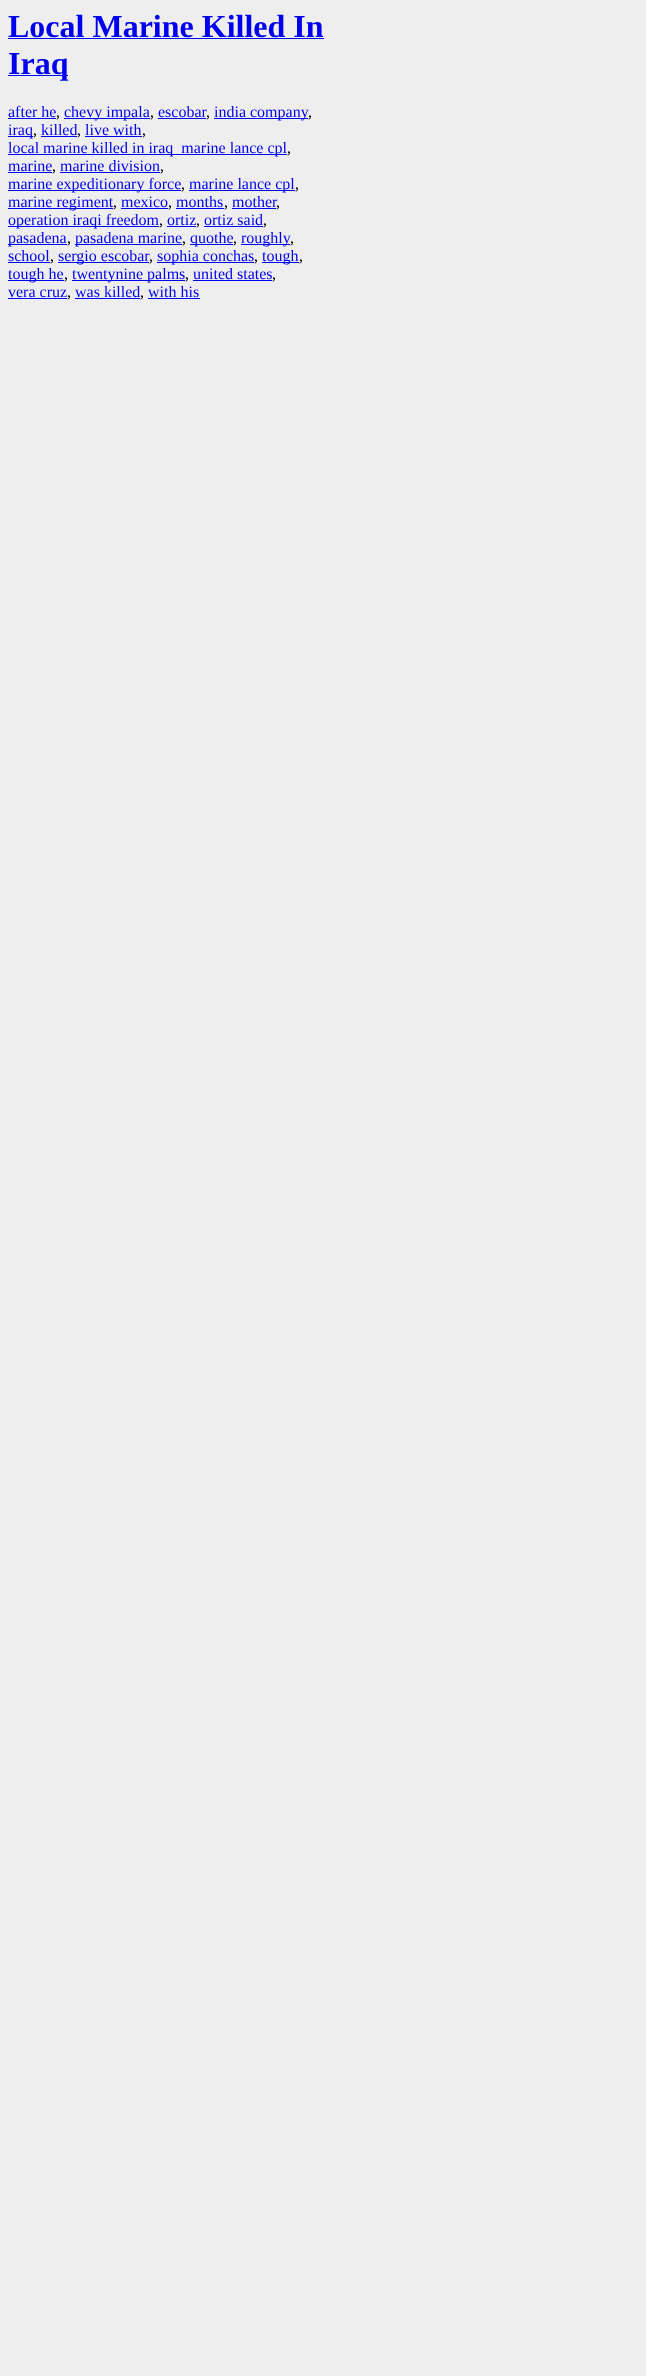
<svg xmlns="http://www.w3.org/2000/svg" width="646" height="2376">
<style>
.a{font:bold 32px Liberation Serif;fill:#00e}
.b{font:16px Liberation Serif;fill:#00e}
.c{font:16px Liberation Serif;fill:#000}
</style>
<rect width="100%" height="100%" fill="#eee"/>
<path fill="#00e" d="M8 38h316v1H8z"/>
<path fill="#00e" d="M8 75h60v1H8z"/>
<path fill="#00e" d="M8 118h48v1H8z"/>
<path fill="#00e" d="M64 118h86v1H64z"/>
<path fill="#00e" d="M158 118h48v1H158z"/>
<path fill="#00e" d="M214 118h94v1H214z"/>
<path fill="#00e" d="M8 136h25v1H8z"/>
<path fill="#00e" d="M41 136h36v1H41z"/>
<path fill="#00e" d="M85 136h57v1H85z"/>
<path fill="#00e" d="M8 154h279v1H8z"/>
<path fill="#00e" d="M8 172h44v1H8z"/>
<path fill="#00e" d="M60 172h100v1H60z"/>
<path fill="#00e" d="M8 190h173v1H8z"/>
<path fill="#00e" d="M189 190h106v1H189z"/>
<path fill="#00e" d="M8 208h105v1H8z"/>
<path fill="#00e" d="M121 208h47v1H121z"/>
<path fill="#00e" d="M176 208h48v1H176z"/>
<path fill="#00e" d="M232 208h44v1H232z"/>
<path fill="#00e" d="M8 226h151v1H8z"/>
<path fill="#00e" d="M167 226h29v1H167z"/>
<path fill="#00e" d="M204 226h59v1H204z"/>
<path fill="#00e" d="M8 244h59v1H8z"/>
<path fill="#00e" d="M75 244h107v1H75z"/>
<path fill="#00e" d="M190 244h43v1H190z"/>
<path fill="#00e" d="M241 244h49v1H241z"/>
<path fill="#00e" d="M8 262h42v1H8z"/>
<path fill="#00e" d="M58 262h91v1H58z"/>
<path fill="#00e" d="M157 262h97v1H157z"/>
<path fill="#00e" d="M262 262h37v1H262z"/>
<path fill="#00e" d="M8 280h56v1H8z"/>
<path fill="#00e" d="M72 280h113v1H72z"/>
<path fill="#00e" d="M193 280h79v1H193z"/>
<path fill="#00e" d="M8 298h59v1H8z"/>
<path fill="#00e" d="M75 298h65v1H75z"/>
<path fill="#00e" d="M148 298h52v1H148z"/>
<text class="a" x="8" y="37">Local Marine Killed In</text>
<text class="a" x="8" y="74">Iraq</text>
<text class="b" x="8" y="117">after he</text>
<text class="c" x="56" y="117">,</text>
<text class="b" x="64" y="117">chevy impala</text>
<text class="c" x="150" y="117">,</text>
<text class="b" x="158" y="117">escobar</text>
<text class="c" x="206" y="117">,</text>
<text class="b" x="214" y="117">india company</text>
<text class="c" x="308" y="117">,</text>
<text class="b" x="8" y="135">iraq</text>
<text class="c" x="33" y="135">,</text>
<text class="b" x="41" y="135">killed</text>
<text class="c" x="77" y="135">,</text>
<text class="b" x="85" y="135">live with</text>
<text class="c" x="142" y="135">,</text>
<text class="b" xml:space="preserve" x="8" y="153">local marine killed in iraq  marine lance cpl</text>
<text class="c" x="287" y="153">,</text>
<text class="b" x="8" y="171">marine</text>
<text class="c" x="52" y="171">,</text>
<text class="b" x="60" y="171">marine division</text>
<text class="c" x="160" y="171">,</text>
<text class="b" x="8" y="189">marine expeditionary force</text>
<text class="c" x="181" y="189">,</text>
<text class="b" x="189" y="189">marine lance cpl</text>
<text class="c" x="295" y="189">,</text>
<text class="b" x="8" y="207">marine regiment</text>
<text class="c" x="113" y="207">,</text>
<text class="b" x="121" y="207">mexico</text>
<text class="c" x="168" y="207">,</text>
<text class="b" x="176" y="207">months</text>
<text class="c" x="224" y="207">,</text>
<text class="b" x="232" y="207">mother</text>
<text class="c" x="276" y="207">,</text>
<text class="b" x="8" y="225">operation iraqi freedom</text>
<text class="c" x="159" y="225">,</text>
<text class="b" x="167" y="225">ortiz</text>
<text class="c" x="196" y="225">,</text>
<text class="b" x="204" y="225">ortiz said</text>
<text class="c" x="263" y="225">,</text>
<text class="b" x="8" y="243">pasadena</text>
<text class="c" x="67" y="243">,</text>
<text class="b" x="75" y="243">pasadena marine</text>
<text class="c" x="182" y="243">,</text>
<text class="b" x="190" y="243">quothe</text>
<text class="c" x="233" y="243">,</text>
<text class="b" x="241" y="243">roughly</text>
<text class="c" x="290" y="243">,</text>
<text class="b" x="8" y="261">school</text>
<text class="c" x="50" y="261">,</text>
<text class="b" x="58" y="261">sergio escobar</text>
<text class="c" x="149" y="261">,</text>
<text class="b" x="157" y="261">sophia conchas</text>
<text class="c" x="254" y="261">,</text>
<text class="b" x="262" y="261">tough</text>
<text class="c" x="299" y="261">,</text>
<text class="b" x="8" y="279">tough he</text>
<text class="c" x="64" y="279">,</text>
<text class="b" x="72" y="279">twentynine palms</text>
<text class="c" x="185" y="279">,</text>
<text class="b" x="193" y="279">united states</text>
<text class="c" x="272" y="279">,</text>
<text class="b" x="8" y="297">vera cruz</text>
<text class="c" x="67" y="297">,</text>
<text class="b" x="75" y="297">was killed</text>
<text class="c" x="140" y="297">,</text>
<text class="b" x="148" y="297">with his</text>
</svg>
